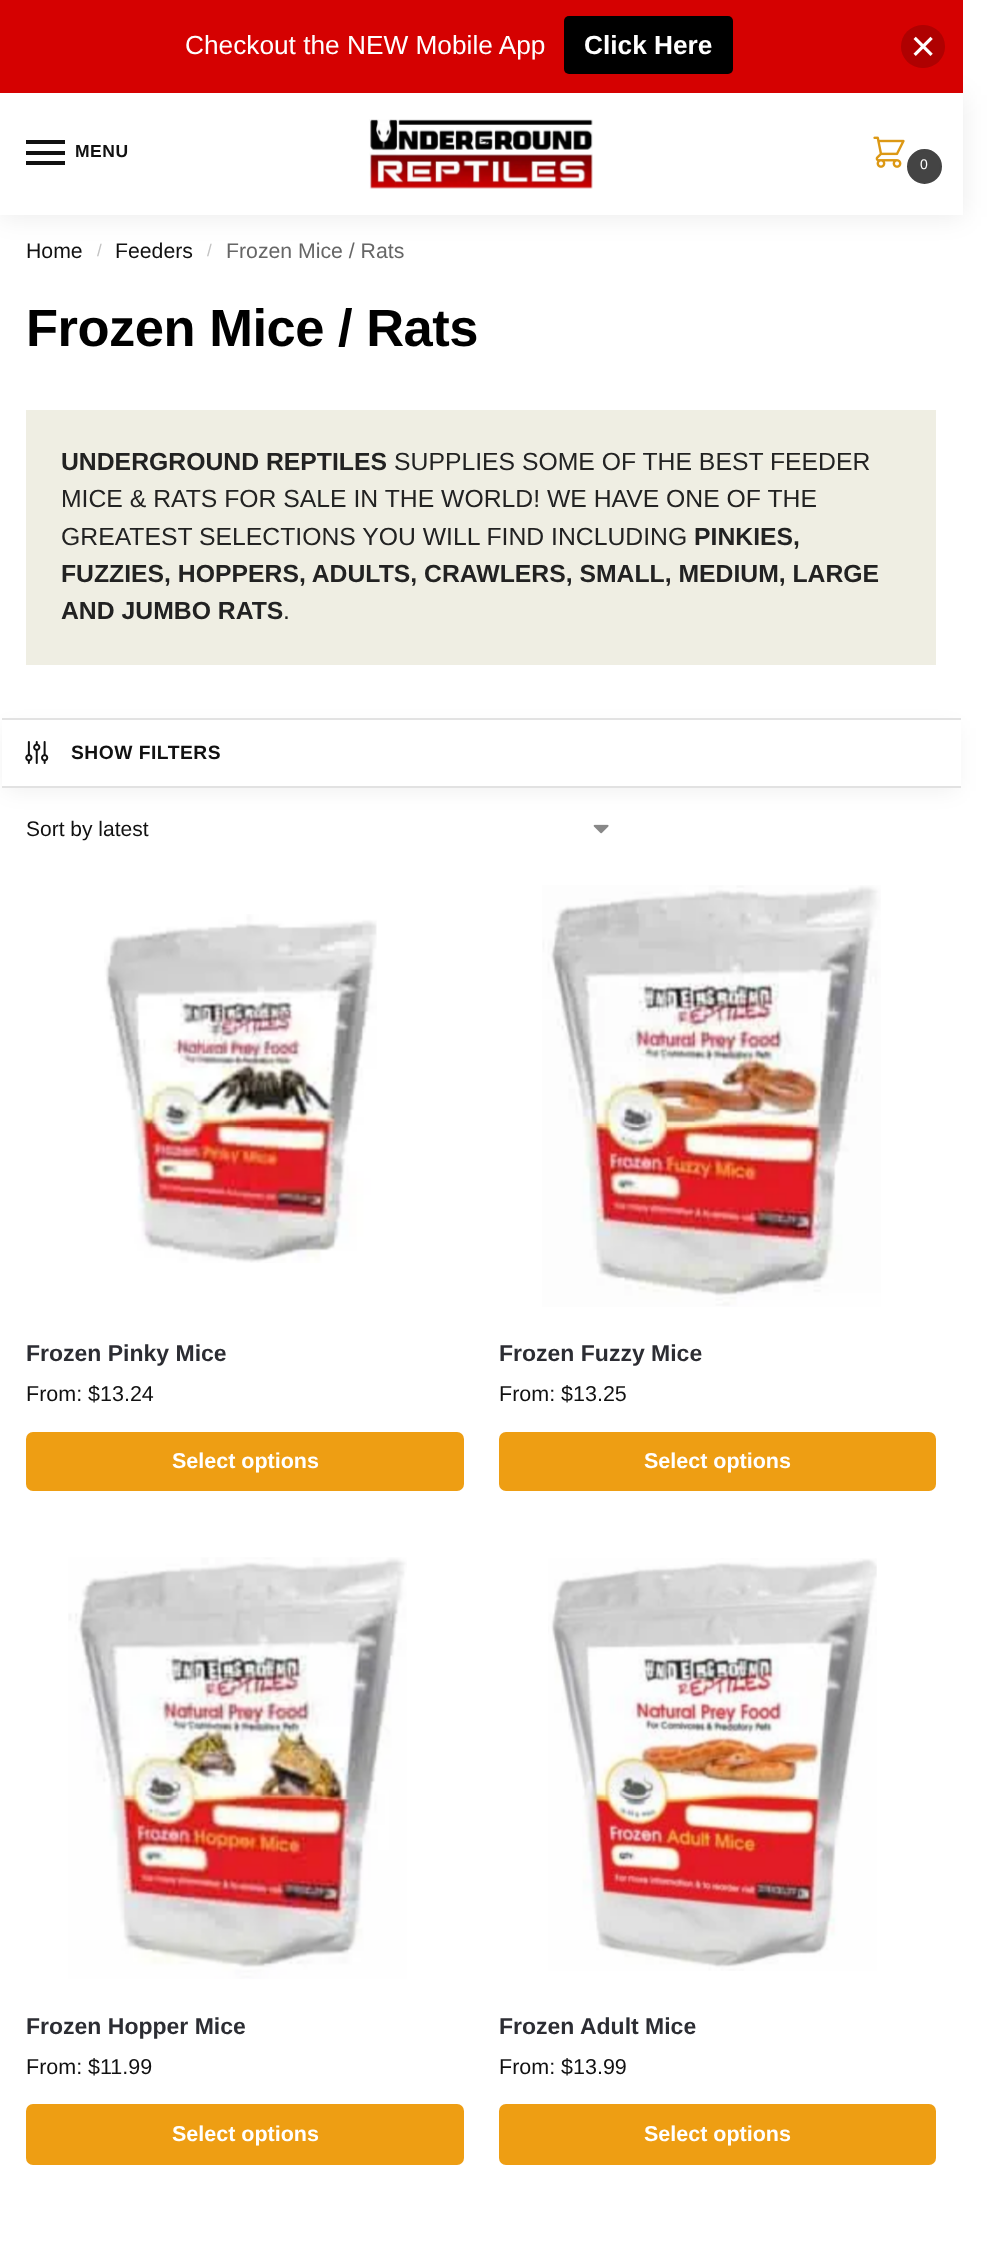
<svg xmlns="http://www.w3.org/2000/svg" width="988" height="2256">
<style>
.a{font:26.25px Liberation Sans;fill:#fff}
.b{font:bold 26.25px Liberation Sans;fill:#fff}
.c{font:bold 17.5px Liberation Sans;letter-spacing:0.5px;fill:#111}
.d{font:14px Liberation Sans;fill:#fff}
.e{font:21.25px Liberation Sans;fill:#111}
.f{font:17px Liberation Sans;fill:#c2c2c2}
.g{font:21.25px Liberation Sans;fill:#666}
.h{font:bold 52.5px Liberation Sans;letter-spacing:-0.5px;fill:#000}
.i{font:bold 24.75px Liberation Sans;fill:#222}
.j{font:24.75px Liberation Sans;fill:#222}
.k{font:bold 19.25px Liberation Sans;letter-spacing:0.5px;fill:#111}
.l{font:21px Liberation Sans;fill:#111}
.m{font:bold 23px Liberation Sans;fill:#2c2d33}
.n{font:21.5px Liberation Sans;fill:#111}
.o{font:bold 21.5px Liberation Sans;fill:#fff}
</style>
<rect width="100%" height="100%" fill="#fff"/>
<path fill="#00000014" filter="blur(13px)" d="M0 95h963v122H0z"/>
<path fill="#d50101" d="M0 0h963v93H0z"/>
<rect fill="#000" x="564" y="16" width="169" height="58" rx="5"/>
<rect fill="#af0101" x="901" y="25" width="44" height="43" rx="21.5"/>
<image href="1.png" x="913" y="36" width="20" height="20"/>
<path fill="#fff" d="M0 93h963v122H0z"/>
<path fill="#111" d="M26 140h39v4H26z"/>
<path fill="#111" d="M26 151h39v4H26z"/>
<path fill="#111" d="M26 161h39v4H26z"/>
<image href="2.png" x="369" y="119" width="224" height="70"/>
<image href="3.png" x="873" y="136" width="32" height="32"/>
<circle fill="#444" stroke="#444" stroke-width="2" cx="924.5" cy="166.5" r="16.5"/>
<path fill="#efeee3" d="M26 410h910v255H26z"/>
<path fill="#0000000f" filter="blur(10.5px)" d="M5 728h952v63H5z"/>
<path fill="#fff" d="M2 720h959v66H2z"/>
<path fill="#e2e2e2" d="M2 718h959v2H2z"/>
<path fill="#e2e2e2" d="M2 786h959v2H2z"/>
<image href="4.png" x="25" y="741" width="24" height="23"/>
<image href="5.png" x="593" y="824" width="16" height="10"/>
<image href="6.png" x="104" y="914" width="273" height="349"/>
<rect fill="#ee9e13" x="26" y="1432" width="438" height="59" rx="7"/>
<image href="7.png" x="542" y="885" width="339" height="422"/>
<rect fill="#ee9e13" x="499" y="1432" width="437" height="59" rx="7"/>
<image href="8.png" x="68" y="1557" width="339" height="422"/>
<rect fill="#ee9e13" x="26" y="2104" width="438" height="61" rx="7"/>
<image href="9.png" x="548" y="1558" width="329" height="413"/>
<rect fill="#ee9e13" x="499" y="2104" width="437" height="61" rx="7"/>
<text class="a" x="185" y="54">Checkout the NEW Mobile App</text>
<text class="b" x="584" y="54">Click Here</text>
<text class="c" x="75" y="157">MENU</text>
<text class="d" x="920" y="169">0</text>
<text class="e" x="26" y="258">Home</text>
<text class="f" x="97" y="256">/</text>
<text class="e" x="115" y="258">Feeders</text>
<text class="f" x="207" y="256">/</text>
<text class="g" x="226" y="258">Frozen Mice / Rats</text>
<text class="h" x="26" y="346">Frozen Mice / Rats</text>
<text class="i" x="61" y="470">UNDERGROUND REPTILES</text>
<text class="j" x="394" y="470">SUPPLIES SOME OF THE BEST FEEDER</text>
<text class="j" x="61" y="507">MICE &amp; RATS FOR SALE IN THE WORLD! WE HAVE ONE OF THE</text>
<text class="j" x="61" y="545">GREATEST SELECTIONS YOU WILL FIND INCLUDING</text>
<text class="i" x="694" y="545">PINKIES,</text>
<text class="i" x="61" y="582">FUZZIES, HOPPERS, ADULTS, CRAWLERS, SMALL, MEDIUM, LARGE</text>
<text class="i" x="61" y="619">AND JUMBO RATS</text>
<text class="j" x="283" y="619">.</text>
<text class="k" x="71" y="759">SHOW FILTERS</text>
<text class="l" x="26" y="836">Sort by latest</text>
<text class="m" x="26" y="1361">Frozen Pinky Mice</text>
<text class="n" x="26" y="1401">From: $</text>
<text class="n" x="100" y="1401">13.24</text>
<text class="o" x="172" y="1468">Select options</text>
<text class="m" x="499" y="1361">Frozen Fuzzy Mice</text>
<text class="n" x="499" y="1401">From: $</text>
<text class="n" x="573" y="1401">13.25</text>
<text class="o" x="644" y="1468">Select options</text>
<text class="m" x="26" y="2034">Frozen Hopper Mice</text>
<text class="n" x="26" y="2074">From: $</text>
<text class="n" x="100" y="2074">11.99</text>
<text class="o" x="172" y="2141">Select options</text>
<text class="m" x="499" y="2034">Frozen Adult Mice</text>
<text class="n" x="499" y="2074">From: $</text>
<text class="n" x="573" y="2074">13.99</text>
<text class="o" x="644" y="2141">Select options</text>
</svg>
